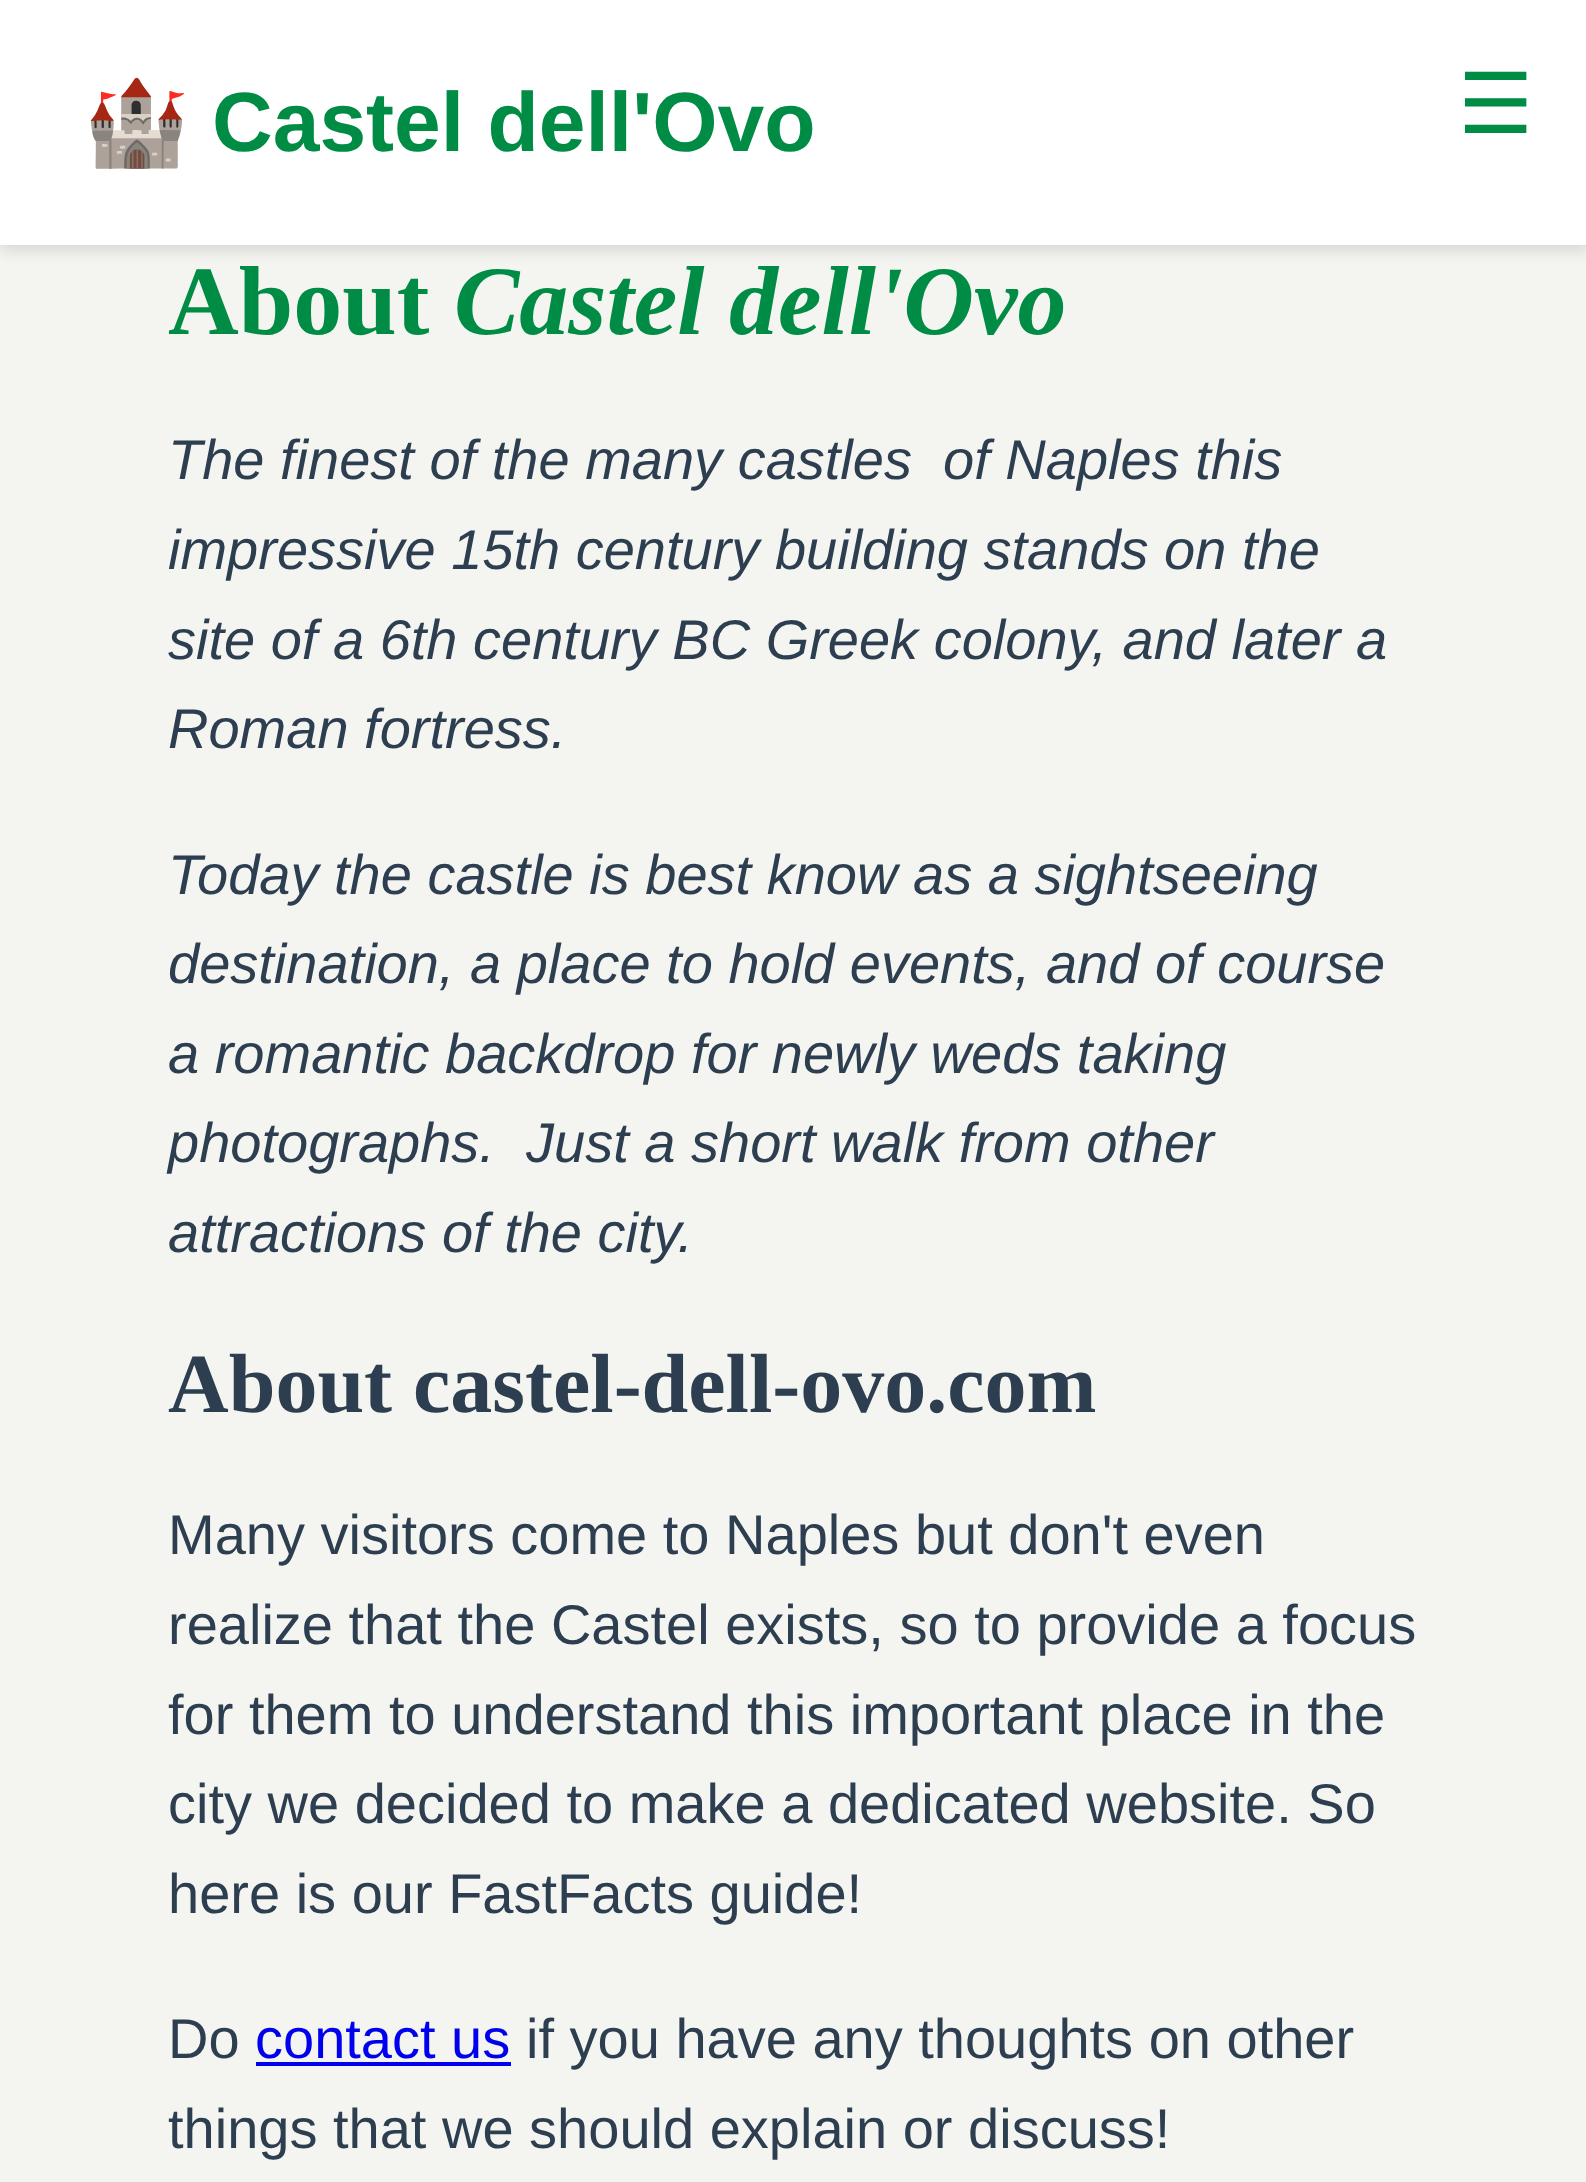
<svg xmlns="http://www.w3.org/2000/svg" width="1586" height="2182">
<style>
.a{font:bold 84px Noto Color Emoji;fill:#008c45}
.b{font:bold 84px Liberation Sans;fill:#008c45}
.c{font:84px DejaVu Sans;fill:#008c45}
.d{font:bold 98px Liberation Serif;fill:#008c45}
.e{font:italic bold 98px Liberation Serif;fill:#008c45}
.f{font:italic 56px Liberation Sans;fill:#2c3e50}
.g{font:bold 84px Liberation Serif;fill:#2c3e50}
.h{font:56px Liberation Sans;fill:#2c3e50}
.i{font:56px Liberation Sans;fill:#00e}
</style>
<rect width="100%" height="100%" fill="#f4f5f0"/>
<path fill="#0000001a" filter="blur(7px)" d="M0 7h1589v245H0z"/>
<path fill="#fefffe" d="M0 0h1586v245H0z"/>
<path fill="#00e" d="M256 2062h255v4H256z"/>
<text class="a" x="84" y="151">🏰</text>
<text class="b" x="212" y="151">Castel dell'Ovo</text>
<text class="c" x="1458" y="133">☰</text>
<text class="d" x="168" y="334">About</text>
<text class="e" x="454" y="334">Castel dell'Ovo</text>
<text class="f" xml:space="preserve" x="168" y="479">The finest of the many castles  of Naples this</text>
<text class="f" x="168" y="569">impressive 15th century building stands on the</text>
<text class="f" x="168" y="659">site of a 6th century BC Greek colony, and later a</text>
<text class="f" x="168" y="748">Roman fortress.</text>
<text class="f" x="168" y="894">Today the castle is best know as a sightseeing</text>
<text class="f" x="168" y="983">destination, a place to hold events, and of course</text>
<text class="f" x="168" y="1073">a romantic backdrop for newly weds taking</text>
<text class="f" xml:space="preserve" x="168" y="1162">photographs.  Just a short walk from other</text>
<text class="f" x="168" y="1252">attractions of the city.</text>
<text class="g" x="168" y="1412">About castel-dell-ovo.com</text>
<text class="h" x="168" y="1554">Many visitors come to Naples but don't even</text>
<text class="h" x="168" y="1644">realize that the Castel exists, so to provide a focus</text>
<text class="h" x="168" y="1734">for them to understand this important place in the</text>
<text class="h" x="168" y="1823">city we decided to make a dedicated website. So</text>
<text class="h" x="168" y="1913">here is our FastFacts guide!</text>
<text class="h" x="168" y="2058">Do</text>
<text class="i" x="255" y="2058">contact us</text>
<text class="h" x="526" y="2058">if you have any thoughts on other</text>
<text class="h" x="168" y="2148">things that we should explain or discuss!</text>
</svg>
